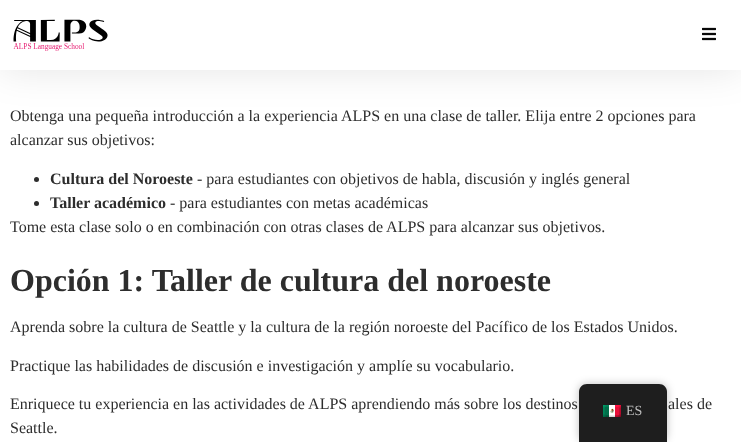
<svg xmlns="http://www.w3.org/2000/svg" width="741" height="442">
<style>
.a{font:16px Liberation Serif;fill:#2d2d2d}
.b{font:bold 16px Liberation Serif;fill:#2d2d2d}
.c{font:bold 32px Liberation Serif;fill:#2d2d2d}
.d{font:14px Liberation Serif;fill:#bdbdbd}
</style>
<rect width="100%" height="100%" fill="#fff"/>
<path fill="#0000001a" filter="blur(19px)" d="M0 0h741v70H0z"/>
<path fill="#fff" d="M0 0h741v70H0z"/>
<image href="1.png" x="13" y="19" width="95" height="32"/>
<image href="2.png" x="702" y="27" width="14" height="14"/>
<circle fill="#2d2d2d" cx="36.5" cy="179.5" r="2.5"/>
<circle fill="#2d2d2d" cx="36.5" cy="203.5" r="2.5"/>
<rect fill="#00000040" filter="blur(4px)" x="579" y="384" width="88" height="58" rx="8"/>
<path fill="#1e1e1e" d="M587 384h72c4.5 0 8 3.5 8 8v50h-88v-50c0-4.5 3.5-8 8-8z"/>
<image href="3.png" x="603" y="405" width="18" height="12"/>
<text class="a" x="10" y="121">Obtenga una pequeña introducción a la experiencia ALPS en una clase de taller. Elija entre 2 opciones para</text>
<text class="a" x="10" y="145">alcanzar sus objetivos:</text>
<text class="b" x="50" y="184">Cultura del Noroeste</text>
<text class="a" x="197" y="184">- para estudiantes con objetivos de habla, discusión y inglés general</text>
<text class="b" x="50" y="208">Taller académico</text>
<text class="a" x="170" y="208">- para estudiantes con metas académicas</text>
<text class="a" x="10" y="232">Tome esta clase solo o en combinación con otras clases de ALPS para alcanzar sus objetivos.</text>
<text class="c" x="10" y="291">Opción 1: Taller de cultura del noroeste</text>
<text class="a" x="10" y="332">Aprenda sobre la cultura de Seattle y la cultura de la región noroeste del Pacífico de los Estados Unidos.</text>
<text class="a" x="10" y="371">Practique las habilidades de discusión e investigación y amplíe su vocabulario.</text>
<text class="a" x="10" y="409">Enriquece tu experiencia en las actividades de ALPS aprendiendo más sobre los destinos</text>
<text class="a" x="668" y="409">ales de</text>
<text class="a" x="10" y="433">Seattle.</text>
<text class="d" x="626" y="415">ES</text>
</svg>
